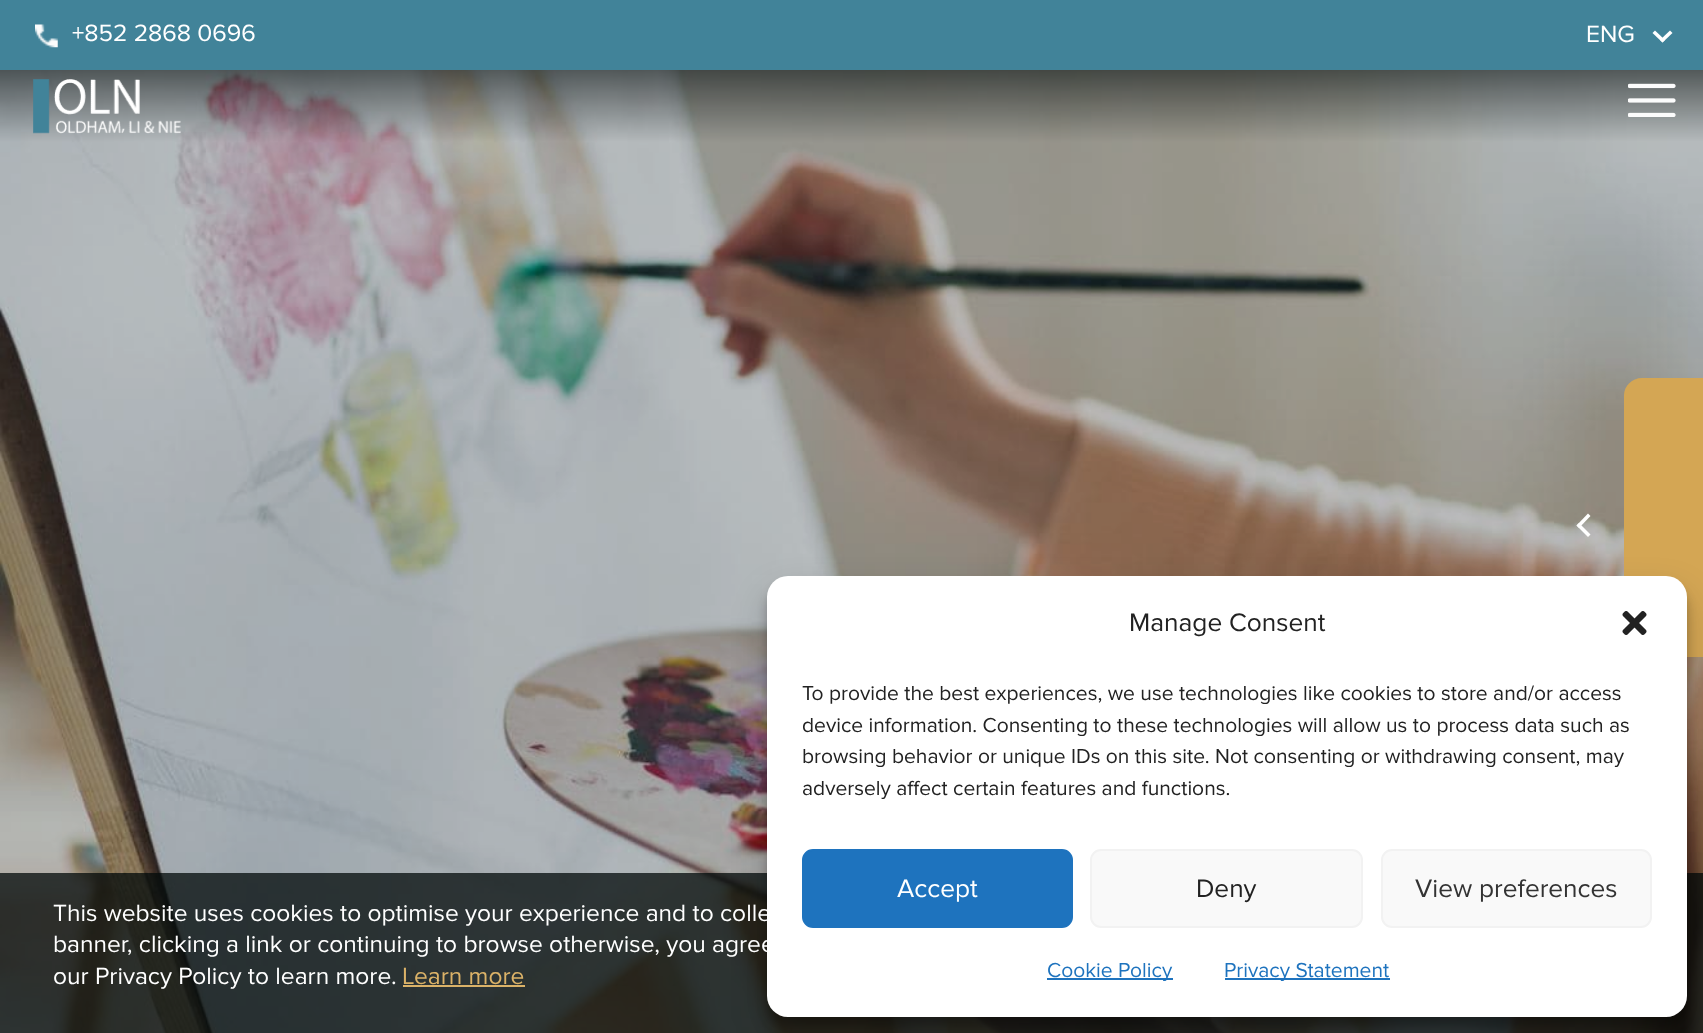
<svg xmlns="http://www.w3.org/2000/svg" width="1703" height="1033">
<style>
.a{font:24.5px Proxima Nova;fill:#fff}
.b{font:24.5px Proxima Nova;fill:#dbb268}
.c{font:26.25px Proxima Nova;fill:#222}
.d{font:21px Proxima Nova;fill:#222}
.e{font:26.25px Proxima Nova;fill:#fff}
.f{font:26.25px Proxima Nova;fill:#333}
.g{font:21px Proxima Nova;fill:#1e73be}
</style>
<rect width="100%" height="100%" fill="#418399"/>
<image href="1.png" x="35" y="24" width="23" height="24"/>
<path fill="#fff" d="M1670 30.5l2.5 2.5l-10 9.5l-2.5-2.5z"/>
<path fill="#fff" d="M1655 30.5l10 9.5l-2.5 2.5l-10-9.5z"/>
<image href="2.png" x="0" y="70" width="1703" height="963"/>
<image href="3.png" x="33" y="79" width="148" height="55"/>
<image href="4.png" x="1628" y="83" width="48" height="34"/>
<path fill="#d4a654" d="M1624 639v-244c0-9 8-17 18-17h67v279h-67c-10 0-18-8-18-18z"/>
<path fill="#ffffff12" filter="blur(23px)" d="M1500 697h178v290H1500z"/>
<path fill="#020a0abf" d="M0 873h1703v160H0z"/>
<path fill="#dbb268" d="M403 985h122v2H403z"/>
<path fill="#fff" d="M1590.5 534.5l-2.5 2.5l-11.5-11.5l2.5-2.5z"/>
<path fill="#fff" d="M1590.5 516l-11.5 12l-2.5-2.5l11.5-12z"/>
<rect fill="#0000003b" filter="blur(5px)" x="767" y="586" width="920" height="441" rx="21"/>
<rect fill="#00000030" filter="blur(17.5px)" x="767" y="593" width="920" height="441" rx="21"/>
<rect fill="#fff" x="767" y="576" width="920" height="441" rx="21"/>
<image href="5.png" x="1622" y="611" width="25" height="24"/>
<rect fill="#1e73be" stroke="#1e73be" stroke-width="2" x="803" y="850" width="269" height="77" rx="10"/>
<rect fill="#f9f9f9" stroke="#f2f2f2" stroke-width="2" x="1091" y="850" width="271" height="77" rx="10"/>
<rect fill="#f9f9f9" stroke="#f2f2f2" stroke-width="2" x="1382" y="850" width="269" height="77" rx="10"/>
<path fill="#1e73be" d="M1047 978h126v2H1047z"/>
<path fill="#1e73be" d="M1225 978h165v2H1225z"/>
<text class="a" x="72" y="41">+852 2868 0696</text>
<text class="a" x="1586" y="42">ENG</text>
<text class="a" x="53" y="921">This website uses cookies to optimise your experience and to colle</text>
<text class="a" x="53" y="952">banner, clicking a link or continuing to browse otherwise, you agree</text>
<text class="a" x="53" y="984">our Privacy Policy to learn more.</text>
<text class="b" x="402" y="984">Learn more</text>
<text class="c" x="1129" y="631">Manage Consent</text>
<text class="d" x="802" y="700">To provide the best experiences, we use technologies like cookies to store and/or access</text>
<text class="d" x="802" y="732">device information. Consenting to these technologies will allow us to process data such as</text>
<text class="d" x="802" y="763">browsing behavior or unique IDs on this site. Not consenting or withdrawing consent, may</text>
<text class="d" x="802" y="795">adversely affect certain features and functions.</text>
<text class="e" x="897" y="897">Accept</text>
<text class="c" x="1196" y="897">Deny</text>
<text class="f" x="1415" y="897">View preferences</text>
<text class="g" x="1047" y="977">Cookie Policy</text>
<text class="g" x="1224" y="977">Privacy Statement</text>
</svg>
